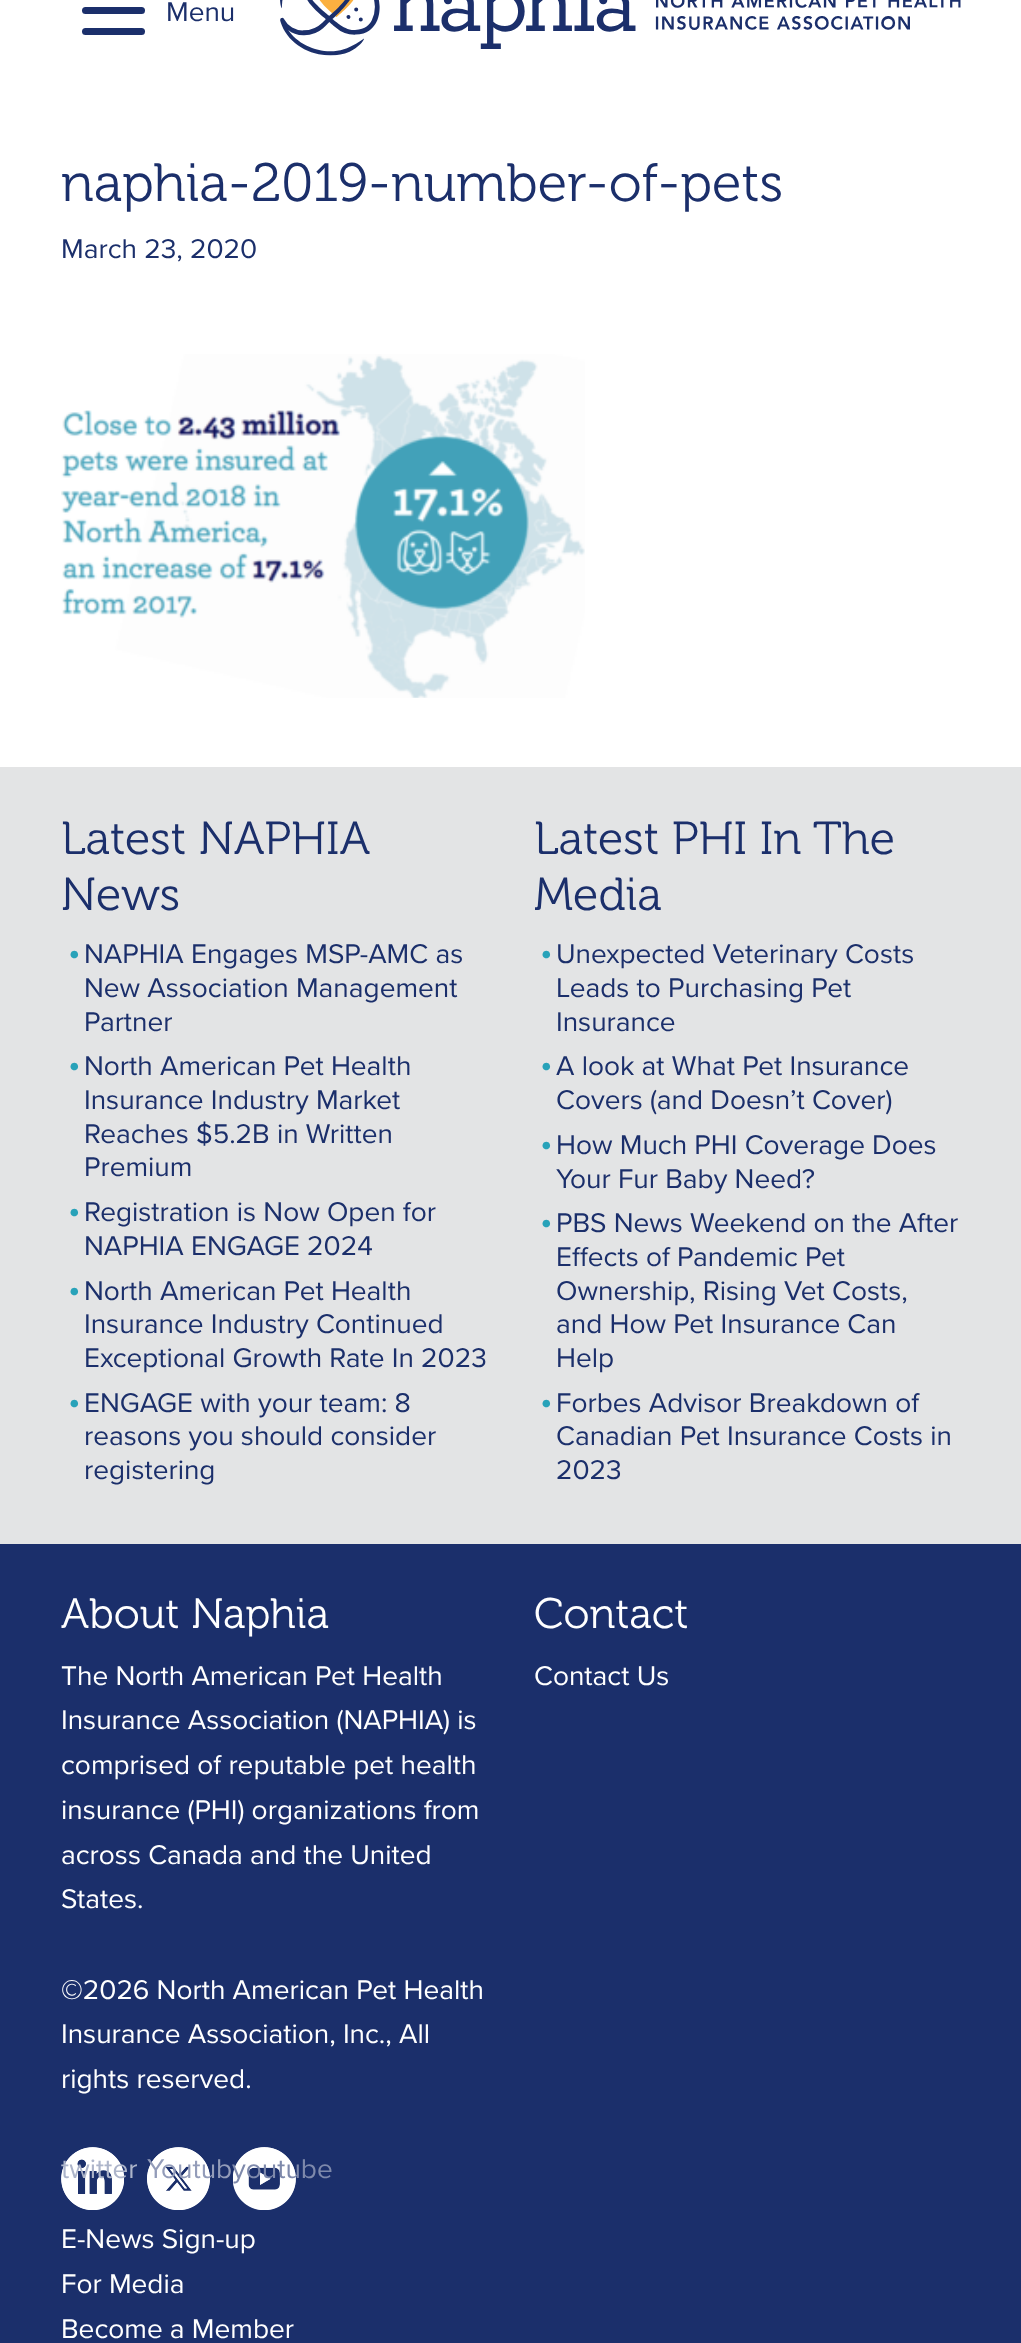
<svg xmlns="http://www.w3.org/2000/svg" width="1021" height="2343">
<style>
.a{font:28px Proxima Nova;fill:#1b2f6b}
.b{font:300 53.8px 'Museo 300';fill:#1b2f6b}
.c{font:300 46.25px 'Museo 300';fill:#1b2f6b}
.d{font:35px Proxima Nova;fill:#28a2b9}
.e{font:300 42.5px 'Museo 300';fill:#fff}
.f{font:28px Proxima Nova;fill:#fff}
.g{font:28px Proxima Nova;fill:#adb5ca}
.h{font:28px Proxima Nova;fill:#939cb9}
.i{font:28px Proxima Nova;fill:#7e89ab}
</style>
<rect width="100%" height="100%" fill="#fff"/>
<rect fill="#1b2f6b" x="82" y="7" width="63" height="7" rx="3.5"/>
<rect fill="#1b2f6b" x="82" y="28" width="63" height="7" rx="3.5"/>
<image href="1.png" x="280" y="0" width="681" height="56"/>
<image href="2.png" x="61" y="354" width="524" height="344"/>
<path fill="#e3e4e5" d="M0 767h1021v777H0z"/>
<path fill="#1b2f6b" d="M0 1544h1021v799H0z"/>
<image href="3.png" x="61" y="2147" width="63" height="63"/>
<image href="4.png" x="61" y="2147" width="63" height="63"/>
<image href="5.png" x="147" y="2147" width="63" height="63"/>
<image href="6.png" x="147" y="2147" width="63" height="63"/>
<image href="7.png" x="233" y="2147" width="63" height="63"/>
<image href="8.png" x="233" y="2147" width="63" height="63"/>
<text class="a" x="166" y="21">Menu</text>
<text class="b" x="61" y="201">naphia-2019-number-of-pets</text>
<text class="a" x="61" y="258">March 23, 2020</text>
<text class="c" x="61" y="854">Latest NAPHIA</text>
<text class="c" x="61" y="910">News</text>
<text class="d" x="68" y="963">•</text>
<text class="a" x="84" y="963">NAPHIA Engages MSP-AMC as</text>
<text class="a" x="84" y="997">New Association Management</text>
<text class="a" x="84" y="1031">Partner</text>
<text class="d" x="68" y="1075">•</text>
<text class="a" x="84" y="1075">North American Pet Health</text>
<text class="a" x="84" y="1109">Insurance Industry Market</text>
<text class="a" x="84" y="1143">Reaches $5.2B in Written</text>
<text class="a" x="84" y="1176">Premium</text>
<text class="d" x="68" y="1221">•</text>
<text class="a" x="84" y="1221">Registration is Now Open for</text>
<text class="a" x="84" y="1255">NAPHIA ENGAGE 2024</text>
<text class="d" x="68" y="1300">•</text>
<text class="a" x="84" y="1300">North American Pet Health</text>
<text class="a" x="84" y="1333">Insurance Industry Continued</text>
<text class="a" x="84" y="1367">Exceptional Growth Rate In 2023</text>
<text class="d" x="68" y="1412">•</text>
<text class="a" x="84" y="1412">ENGAGE with your team: 8</text>
<text class="a" x="84" y="1445">reasons you should consider</text>
<text class="a" x="84" y="1479">registering</text>
<text class="c" x="534" y="854">Latest PHI In The</text>
<text class="c" x="534" y="910">Media</text>
<text class="d" x="540" y="963">•</text>
<text class="a" x="556" y="963">Unexpected Veterinary Costs</text>
<text class="a" x="556" y="997">Leads to Purchasing Pet</text>
<text class="a" x="556" y="1031">Insurance</text>
<text class="d" x="540" y="1075">•</text>
<text class="a" x="556" y="1075">A look at What Pet Insurance</text>
<text class="a" x="556" y="1109">Covers (and Doesn’t Cover)</text>
<text class="d" x="540" y="1154">•</text>
<text class="a" x="556" y="1154">How Much PHI Coverage Does</text>
<text class="a" x="556" y="1188">Your Fur Baby Need?</text>
<text class="d" x="540" y="1232">•</text>
<text class="a" x="556" y="1232">PBS News Weekend on the After</text>
<text class="a" x="556" y="1266">Effects of Pandemic Pet</text>
<text class="a" x="556" y="1300">Ownership, Rising Vet Costs,</text>
<text class="a" x="556" y="1333">and How Pet Insurance Can</text>
<text class="a" x="556" y="1367">Help</text>
<text class="d" x="540" y="1412">•</text>
<text class="a" x="556" y="1412">Forbes Advisor Breakdown of</text>
<text class="a" x="556" y="1445">Canadian Pet Insurance Costs in</text>
<text class="a" x="556" y="1479">2023</text>
<text class="e" x="61" y="1628">About Naphia</text>
<text class="f" x="61" y="1685">The North American Pet Health</text>
<text class="f" x="61" y="1729">Insurance Association (NAPHIA) is</text>
<text class="f" x="61" y="1774">comprised of reputable pet health</text>
<text class="f" x="61" y="1819">insurance (PHI) organizations from</text>
<text class="f" x="61" y="1864">across Canada and the United</text>
<text class="f" x="61" y="1908">States.</text>
<text class="f" x="61" y="1999">©2026 North American Pet Health</text>
<text class="f" x="61" y="2043">Insurance Association, Inc., All</text>
<text class="f" x="61" y="2088">rights reserved.</text>
<text class="e" x="534" y="1628">Contact</text>
<text class="f" x="534" y="1685">Contact Us</text>
<text class="g" x="61" y="2178">twitter</text>
<text class="h" x="147" y="2178">Youtub</text>
<text class="i" x="232" y="2178">youtube</text>
<text class="f" x="61" y="2248">E-News Sign-up</text>
<text class="f" x="61" y="2293">For Media</text>
<text class="f" x="61" y="2338">Become a Member</text>
</svg>
